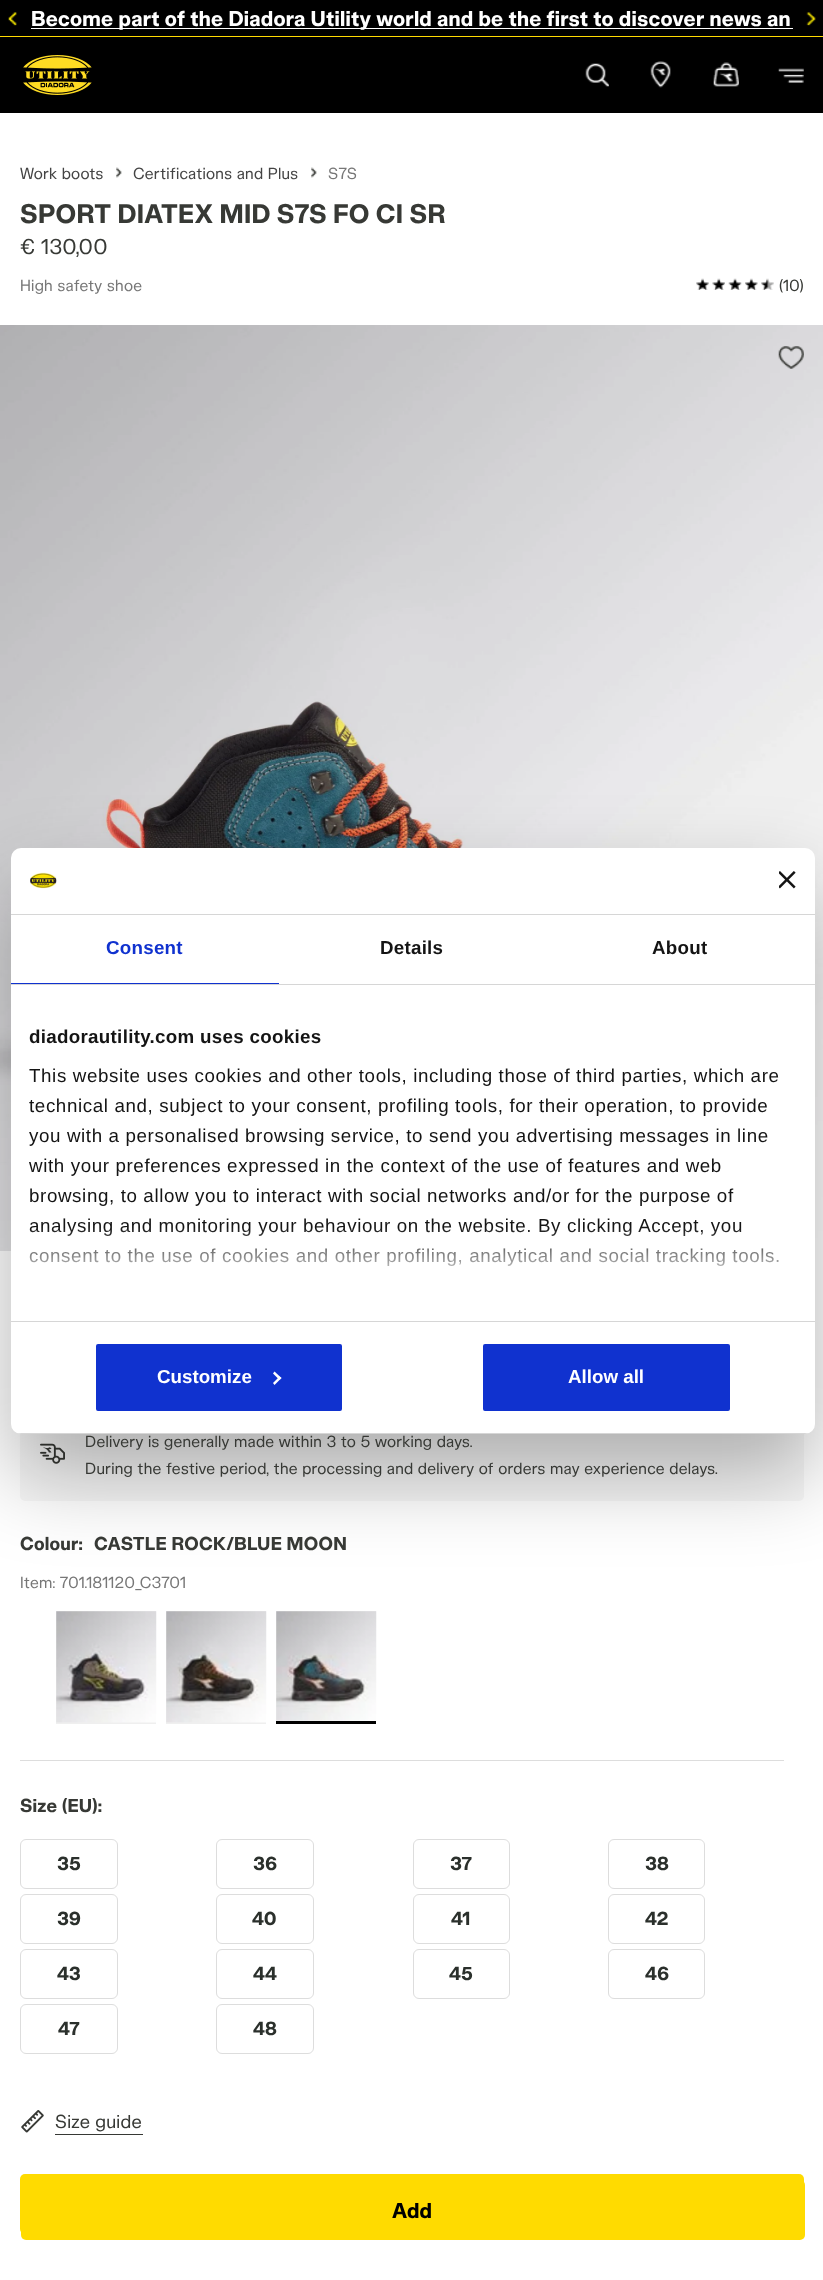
<svg xmlns="http://www.w3.org/2000/svg" width="823" height="2280">
<style>
.a{font:bold 20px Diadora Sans;letter-spacing:0.25px;fill:#fff}
.b{font:15px Diadora Sans;letter-spacing:0.25px;fill:#444}
.c{font:15px Diadora Sans;letter-spacing:0.25px;fill:#777}
.d{font:bold 25px Diadora Sans;letter-spacing:0.25px;fill:#373935}
.e{font:20px Diadora Sans;letter-spacing:0.25px;fill:#373935}
.f{font:15px Diadora Sans;letter-spacing:0.25px;fill:#373935}
.g{font:bold 17.5px Diadora Sans;letter-spacing:0.25px;fill:#373935}
.h{font:bold 17.5px Diadora Sans;fill:#2b302c}
.i{font:17.5px Diadora Sans;letter-spacing:0.25px;fill:#373935}
.j{font:bold 20px Diadora Sans;letter-spacing:0.25px;fill:#000}
.k{font:bold 18.75px Liberation Sans;letter-spacing:0.25px;fill:#1032cf}
.l{font:bold 18.75px Liberation Sans;letter-spacing:0.25px;fill:#141414}
.m{font:bold 18.75px Liberation Sans;letter-spacing:0.3px;fill:#141414}
.n{font:18.75px Liberation Sans;letter-spacing:0.62px;fill:#141414}
.o{font:bold 18.75px Liberation Sans;fill:#fff}
</style>
<defs>
<clipPath id="clip1"><rect x="11" y="848" width="804" height="586" rx="10"/></clipPath>
<linearGradient id="g1" gradientUnits="userSpaceOnUse" x1="404" y1="1321" x2="404" y2="1227"><stop offset="0" stop-color="#fff"/><stop offset="0.5" stop-color="#fff" stop-opacity="0.8"/><stop offset="1" stop-color="#fff" stop-opacity="0"/></linearGradient>
</defs>
<rect width="100%" height="100%" fill="#fff"/>
<path fill="#000" d="M0 0h823v113H0z"/>
<path fill="#ffdb01" d="M0 36h823v1H0z"/>
<path fill="#fff" d="M31 28h762v1H31z"/>
<image href="1.png" x="8" y="12" width="9" height="14"/>
<image href="2.png" x="806" y="12" width="10" height="14"/>
<image href="3.png" x="23" y="55" width="69" height="40"/>
<image href="4.png" x="585" y="63" width="24" height="24"/>
<image href="5.png" x="650" y="61" width="21" height="27"/>
<image href="6.png" x="713" y="62" width="26" height="25"/>
<image href="7.png" x="778" y="68" width="26" height="15"/>
<image href="8.png" x="116" y="167" width="6" height="11"/>
<image href="9.png" x="311" y="167" width="6" height="11"/>
<image href="10.png" x="696" y="278" width="13" height="12"/>
<image href="11.png" x="712" y="278" width="13" height="12"/>
<image href="12.png" x="728" y="278" width="14" height="12"/>
<image href="13.png" x="745" y="278" width="13" height="12"/>
<image href="14.png" x="761" y="278" width="13" height="12"/>
<image href="15.png" x="0" y="325" width="823" height="926"/>
<image href="16.png" x="778" y="346" width="26" height="23"/>
<rect fill="#f7f7f7" x="20" y="1406" width="784" height="95" rx="5"/>
<image href="17.png" x="40" y="1443" width="25" height="21"/>
<path fill="#efefef" d="M56 1611h100v113H56z"/>
<image href="18.png" x="56" y="1611" width="101" height="112"/>
<path fill="#efefef" d="M166 1611h100v113H166z"/>
<image href="19.png" x="166" y="1611" width="101" height="112"/>
<path fill="#efefef" d="M276 1611h100v110H276z"/>
<image href="20.png" x="276" y="1611" width="101" height="112"/>
<path fill="#000" d="M276 1721h100v3H276z"/>
<path fill="#ddd" d="M20 1760h764v1H20z"/>
<rect fill="none" stroke="#ddd" x="20.5" y="1839.5" width="97" height="49" rx="5.5"/>
<rect fill="none" stroke="#ddd" x="216.5" y="1839.5" width="97" height="49" rx="5.5"/>
<rect fill="none" stroke="#ddd" x="413.5" y="1839.5" width="96" height="49" rx="5.5"/>
<rect fill="none" stroke="#ddd" x="608.5" y="1839.5" width="96" height="49" rx="5.5"/>
<rect fill="none" stroke="#ddd" x="20.5" y="1894.5" width="97" height="49" rx="5.5"/>
<rect fill="none" stroke="#ddd" x="216.5" y="1894.5" width="97" height="49" rx="5.5"/>
<rect fill="none" stroke="#ddd" x="413.5" y="1894.5" width="96" height="49" rx="5.5"/>
<rect fill="none" stroke="#ddd" x="608.5" y="1894.5" width="96" height="49" rx="5.5"/>
<rect fill="none" stroke="#ddd" x="20.5" y="1949.5" width="97" height="49" rx="5.5"/>
<rect fill="none" stroke="#ddd" x="216.5" y="1949.5" width="97" height="49" rx="5.5"/>
<rect fill="none" stroke="#ddd" x="413.5" y="1949.5" width="96" height="49" rx="5.5"/>
<rect fill="none" stroke="#ddd" x="608.5" y="1949.5" width="96" height="49" rx="5.5"/>
<rect fill="none" stroke="#ddd" x="20.5" y="2004.5" width="97" height="49" rx="5.5"/>
<rect fill="none" stroke="#ddd" x="216.5" y="2004.5" width="97" height="49" rx="5.5"/>
<image href="21.png" x="21" y="2110" width="23" height="23"/>
<path fill="#373935" d="M55 2134h88v1H55z"/>
<rect fill="#ffdb00" x="20" y="2174" width="784" height="60" rx="5"/>
<rect fill="#ffdb00" x="21" y="2180" width="784" height="60" rx="5"/>
<rect fill="#0000004d" filter="blur(42.5px)" x="11" y="888" width="804" height="586" rx="10"/>
<rect fill="#fff" x="11" y="848" width="804" height="586" rx="10"/>
<path fill="#d6d6d6" d="M11 914h804v1H11z"/>
<image href="22.png" x="30" y="872" width="27" height="17"/>
<image href="23.png" x="779" y="871" width="17" height="18"/>
<path fill="#d6d6d6" d="M11 984h804v1H11z"/>
<path fill="#1032cf" d="M11 983h268v1H11z"/>
<path fill="#d6d6d6" d="M11 1321h804v1H11z"/>
<g clip-path="url(#clip1)">
<path fill="#d6d6d6" d="M11 1433h804v1H11z"/>
</g>
<rect fill="#1032cf" stroke="#fff" stroke-width="3" x="94.5" y="1342.5" width="249" height="70" rx="3.5"/>
<path fill="#fff" d="M274.5 1371.5l7 6.5l-2 2l-6.5-6.5z"/>
<path fill="#fff" d="M279.5 1376.5l2 1.5l-7 7l-1.5-2z"/>
<rect fill="#1032cf" stroke="#fff" stroke-width="3" x="481.5" y="1342.5" width="250" height="70" rx="3.5"/>
<text class="a" x="31" y="26">Become part of the Diadora Utility world and be the first to discover news an</text>
<text class="b" x="20" y="179">Work boots</text>
<text class="b" x="133" y="179">Certifications and Plus</text>
<text class="c" x="328" y="179">S7S</text>
<text class="d" x="20" y="223">SPORT DIATEX MID S7S FO CI SR</text>
<text class="e" x="20" y="254">€ 130,00</text>
<text class="c" x="20" y="291">High safety shoe</text>
<text class="f" x="779" y="291">(10)</text>
<text class="f" x="85" y="1447">Delivery is generally made within 3 to 5 working days.</text>
<text class="f" x="85" y="1474">During the festive period, the processing and delivery of orders may experience delays.</text>
<text class="g" x="20" y="1550">Colour:</text>
<text class="g" x="94" y="1550">CASTLE ROCK/BLUE MOON</text>
<text class="c" x="20" y="1588">Item: 701.181120_C3701</text>
<text class="g" x="20" y="1812">Size (EU):</text>
<text class="h" x="57" y="1870">35</text>
<text class="h" x="253" y="1870">36</text>
<text class="h" x="450" y="1870">37</text>
<text class="h" x="645" y="1870">38</text>
<text class="h" x="57" y="1925">39</text>
<text class="h" x="252" y="1925">40</text>
<text class="h" x="451" y="1925">41</text>
<text class="h" x="645" y="1925">42</text>
<text class="h" x="57" y="1980">43</text>
<text class="h" x="253" y="1980">44</text>
<text class="h" x="449" y="1980">45</text>
<text class="h" x="645" y="1980">46</text>
<text class="h" x="58" y="2035">47</text>
<text class="h" x="253" y="2035">48</text>
<text class="i" x="55" y="2128">Size guide</text>
<text class="j" x="392" y="2218">Add</text>
<text class="k" x="106" y="954">Consent</text>
<text class="l" x="380" y="954">Details</text>
<text class="l" x="652" y="954">About</text>
<text class="m" x="29" y="1043">diadorautility.com uses cookies</text>
<text class="n" x="29" y="1082">This website uses cookies and other tools, including those of third parties, which are</text>
<text class="n" x="29" y="1112">technical and, subject to your consent, profiling tools, for their operation, to provide</text>
<text class="n" x="29" y="1142">you with a personalised browsing service, to send you advertising messages in line</text>
<text class="n" x="29" y="1172">with your preferences expressed in the context of the use of features and web</text>
<text class="n" x="29" y="1202">browsing, to allow you to interact with social networks and/or for the purpose of</text>
<text class="n" x="29" y="1232">analysing and monitoring your behaviour on the website. By clicking Accept, you</text>
<text class="n" x="29" y="1262">consent to the use of cookies and other profiling, analytical and social tracking tools.</text>
<path fill="url(#g1)" d="M29 1228h750v38H29z"/>
<text class="o" x="157" y="1383">Customize</text>
<text class="o" x="568" y="1383">Allow all</text>
</svg>
